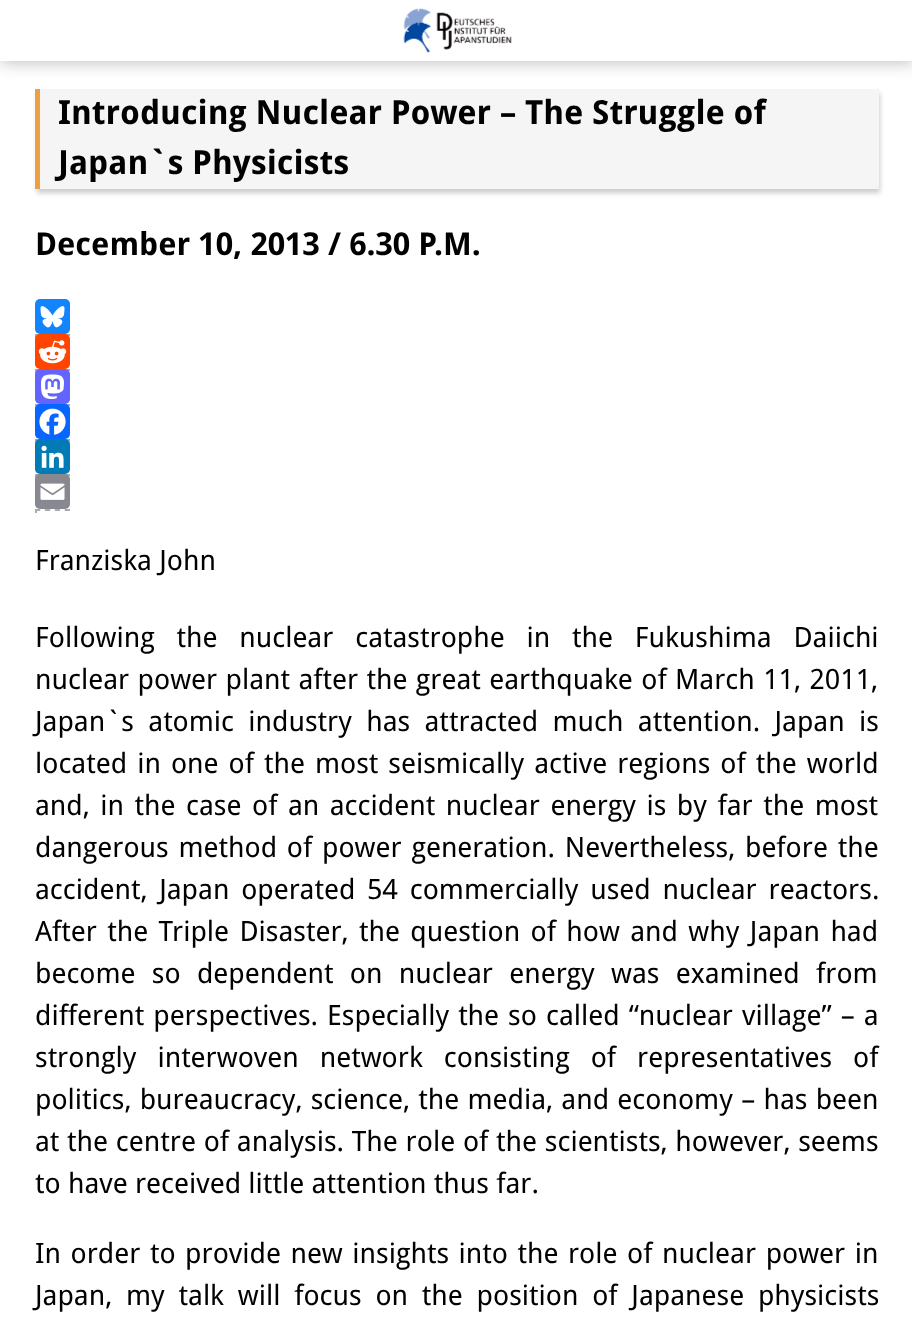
<svg xmlns="http://www.w3.org/2000/svg" width="912" height="1321">
<style>
.a{font:bold 33.25px Droid Sans;fill:#000}
.b{font:bold 31.5px Droid Sans;fill:#000}
.c{font:28px Droid Sans;fill:#000}
</style>
<defs>
<clipPath id="clip1"><path d="M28 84h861v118h-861zm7 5h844v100h-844z" clip-rule="evenodd"/></clipPath>
</defs>
<rect width="100%" height="100%" fill="#fff"/>
<path fill="#0000004d" filter="blur(9px)" d="M0 0h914v61H0z"/>
<path fill="#fff" d="M0 0h912v61H0z"/>
<image href="1.png" x="403" y="8" width="109" height="45"/>
<g clip-path="url(#clip1)">
<path fill="#ccc" filter="blur(2.5px)" d="M37 93h843v100H37z"/>
</g>
<path fill="#77777712" d="M40 89h839v100H40z"/>
<path fill="#ed9f45" d="M35 89h5v100H35z"/>
<path fill="none" stroke="#ababab" stroke-width="1.8" stroke-dasharray="5.25 4.67" d="M35 335h35"/>
<path fill="#ababab" d="M35 336h2v2H35z"/>
<rect fill="#1285fe" x="35" y="299" width="35" height="35" rx="5"/>
<image href="2.png" x="40" y="306" width="25" height="22"/>
<path fill="none" stroke="#ababab" stroke-width="1.8" stroke-dasharray="5.25 4.67" d="M35 370h35"/>
<path fill="#ababab" d="M35 371h2v2H35z"/>
<rect fill="#ff4500" x="35" y="334" width="35" height="35" rx="5"/>
<image href="3.png" x="38" y="340" width="29" height="24"/>
<path fill="none" stroke="#ababab" stroke-width="1.8" stroke-dasharray="5.25 4.67" d="M35 405h35"/>
<path fill="#ababab" d="M35 406h2v2H35z"/>
<rect fill="#6364ff" x="35" y="369" width="35" height="35" rx="5"/>
<image href="4.png" x="41" y="374" width="23" height="25"/>
<path fill="none" stroke="#ababab" stroke-width="1.8" stroke-dasharray="5.25 4.67" d="M35 440h35"/>
<path fill="#ababab" d="M35 441h2v2H35z"/>
<rect fill="#0866ff" x="35" y="404" width="35" height="35" rx="5"/>
<image href="5.png" x="39" y="408" width="27" height="27"/>
<path fill="none" stroke="#ababab" stroke-width="1.8" stroke-dasharray="5.25 4.67" d="M35 475h35"/>
<path fill="#ababab" d="M35 476h2v2H35z"/>
<rect fill="#007bb5" x="35" y="439" width="35" height="35" rx="5"/>
<image href="6.png" x="41" y="445" width="23" height="23"/>
<path fill="none" stroke="#ababab" stroke-width="1.8" stroke-dasharray="5.25 4.67" d="M35 510h35"/>
<path fill="#ababab" d="M35 511h2v2H35z"/>
<rect fill="#888990" x="35" y="474" width="35" height="35" rx="5"/>
<image href="7.png" x="40" y="483" width="25" height="17"/>
<text class="a" x="58" y="124">Introducing Nuclear Power – The Struggle of</text>
<text class="a" x="58" y="174">Japan`s Physicists</text>
<text class="b" x="35" y="255">December 10, 2013 / 6.30 P.M.</text>
<text class="c" x="35" y="570">Franziska John</text>
<text class="c" x="35" y="647" word-spacing="14.5">Following the nuclear catastrophe in the Fukushima Daiichi</text>
<text class="c" x="35" y="689" word-spacing="1.1">nuclear power plant after the great earthquake of March 11, 2011,</text>
<text class="c" x="35" y="731" word-spacing="7">Japan`s atomic industry has attracted much attention. Japan is</text>
<text class="c" x="35" y="773" word-spacing="2.75">located in one of the most seismically active regions of the world</text>
<text class="c" x="35" y="815" word-spacing="3.25">and, in the case of an accident nuclear energy is by far the most</text>
<text class="c" x="35" y="857" word-spacing="2.5">dangerous method of power generation. Nevertheless, before the</text>
<text class="c" x="35" y="899" word-spacing="4.5">accident, Japan operated 54 commercially used nuclear reactors.</text>
<text class="c" x="35" y="941" word-spacing="3.1">After the Triple Disaster, the question of how and why Japan had</text>
<text class="c" x="35" y="983" word-spacing="9">become so dependent on nuclear energy was examined from</text>
<text class="c" x="35" y="1025" word-spacing="1.75">different perspectives. Especially the so called “nuclear village” – a</text>
<text class="c" x="35" y="1067" word-spacing="13.75">strongly interwoven network consisting of representatives of</text>
<text class="c" x="35" y="1109" word-spacing="1">politics, bureaucracy, science, the media, and economy – has been</text>
<text class="c" x="35" y="1151" word-spacing="0.5">at the centre of analysis. The role of the scientists, however, seems</text>
<text class="c" x="35" y="1193">to have received little attention thus far.</text>
<text class="c" x="35" y="1263" word-spacing="2.25">In order to provide new insights into the role of nuclear power in</text>
<text class="c" x="35" y="1305" word-spacing="6.5">Japan, my talk will focus on the position of Japanese physicists</text>
</svg>
